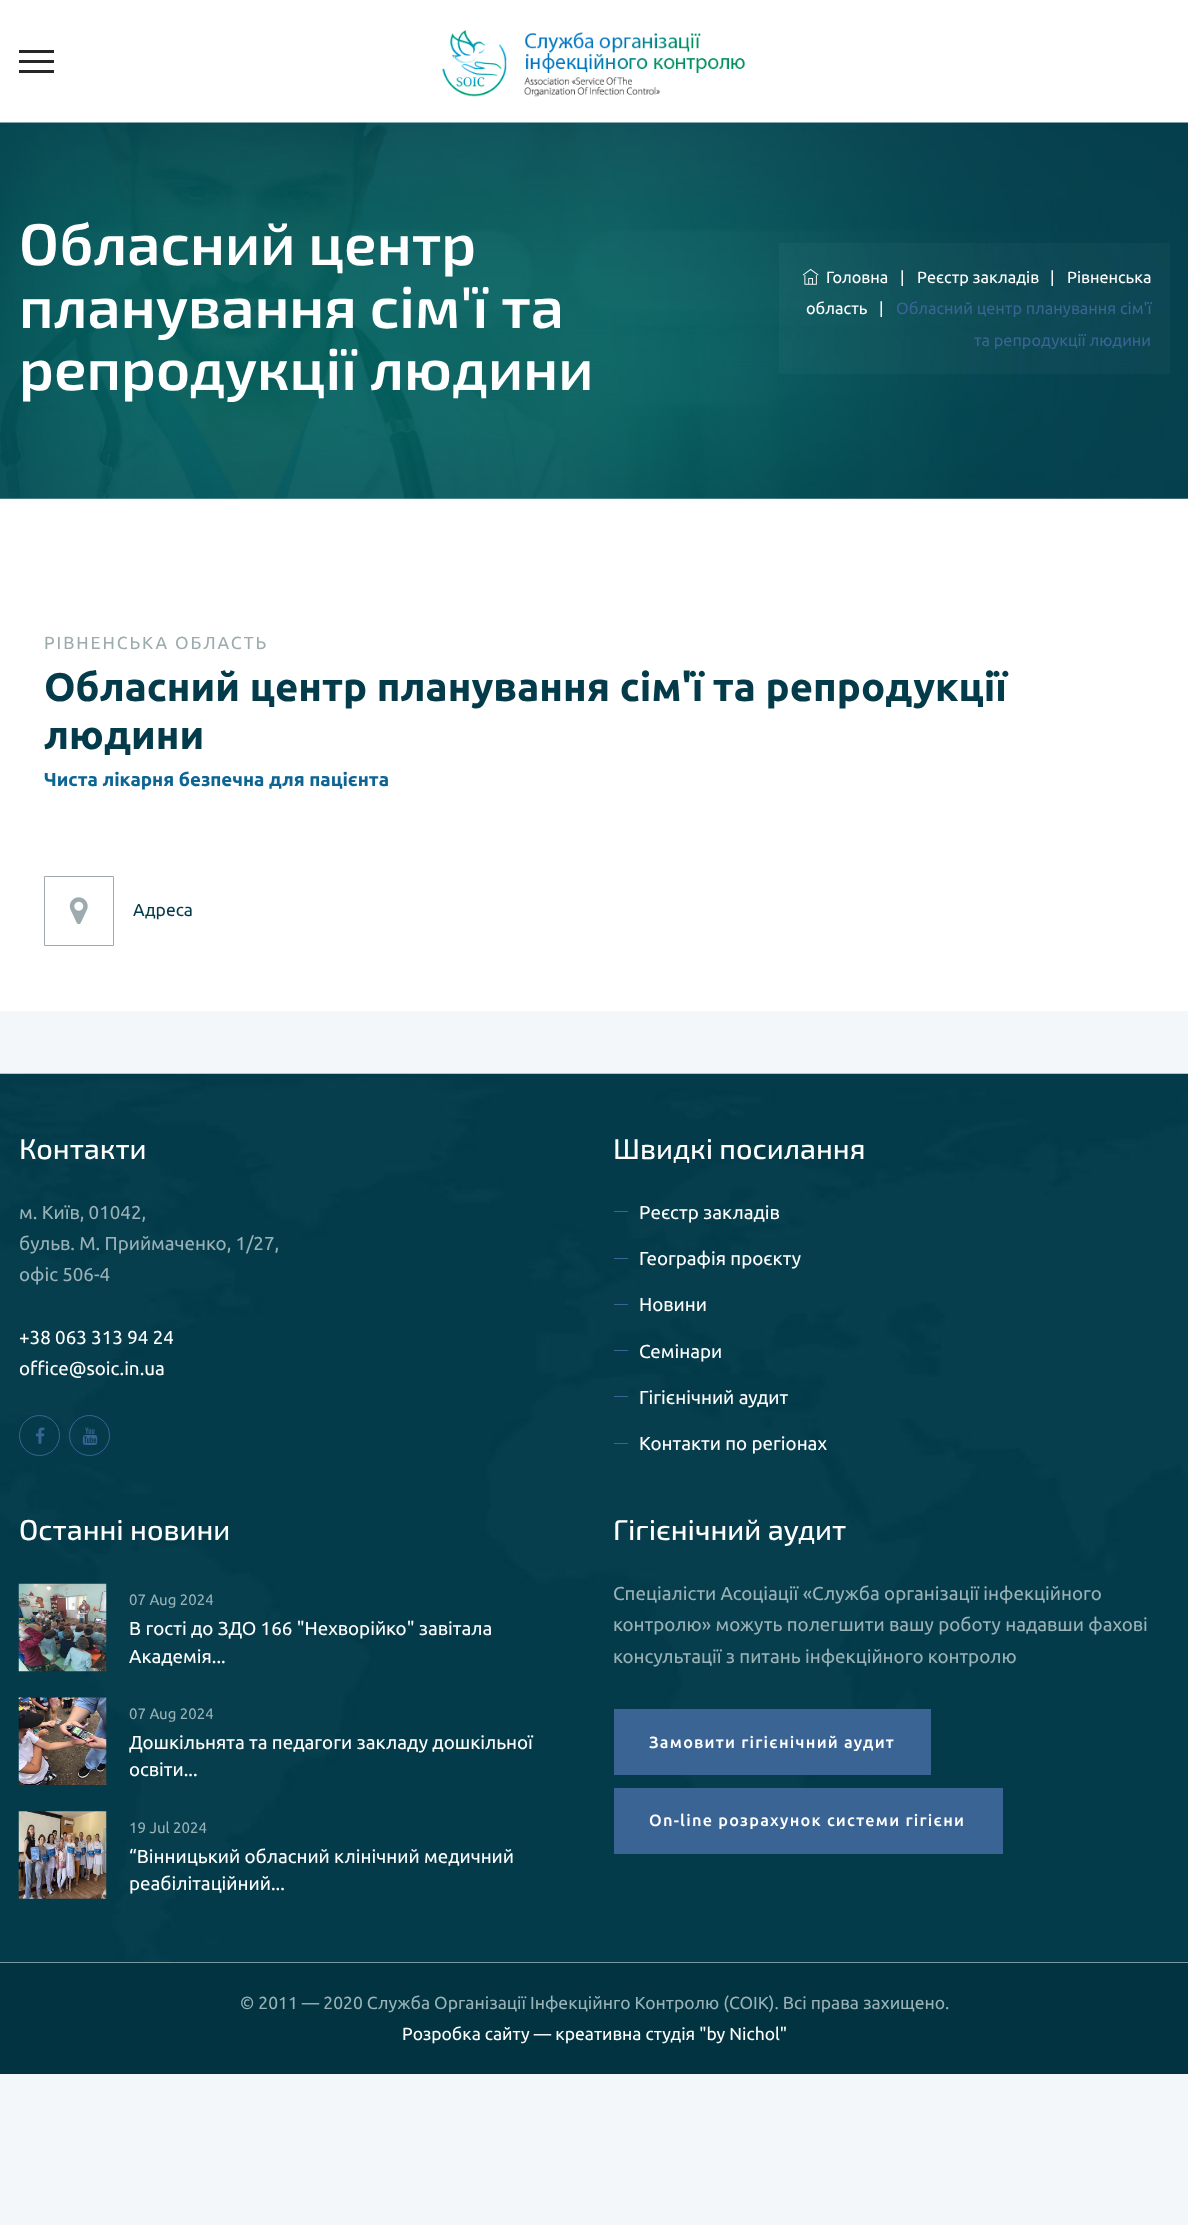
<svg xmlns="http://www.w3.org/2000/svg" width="1188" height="2225">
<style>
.a{font:600 58.75px 'Exo 2';fill:#fff}
.b{font:16.25px Ubuntu;fill:#fff}
.c{font:16.25px Ubuntu;fill:#3a6493}
.d{font:17.5px Ubuntu;letter-spacing:1.9px;fill:#9dabaf}
.e{font:bold 40px Ubuntu;fill:#033b4a}
.f{font:bold 18.75px Ubuntu;fill:#0d6596}
.g{font:17.5px Ubuntu;fill:#033b4a}
.h{font:500 28.75px 'Exo 2';fill:#fff}
.i{font:18.75px Ubuntu;fill:#9ab1b7}
.j{font:18.75px Ubuntu;fill:#fff}
.k{font:15px Ubuntu;fill:#9ab1b7}
.l{font:500 16.25px Ubuntu;letter-spacing:1.25px;fill:#fff}
.m{font:17.5px Ubuntu;fill:#9ab1b7}
.n{font:17.5px Ubuntu;fill:#fff}
</style>
<rect width="100%" height="100%" fill="#f3f7f9"/>
<path fill="#fff" d="M0 0h1188v123H0z"/>
<path fill="#262626" d="M19 50h35v3H19z"/>
<path fill="#262626" d="M19 60h35v3H19z"/>
<path fill="#262626" d="M19 70h35v3H19z"/>
<image href="1.png" x="442" y="30" width="303" height="67"/>
<image href="2.png" x="0" y="122" width="1188" height="377"/>
<path fill="#ffffff08" d="M779 243h391v131H779z"/>
<image href="3.png" x="802" y="268" width="17" height="17"/>
<path fill="#fff" d="M0 499h1188v512H0z"/>
<path fill="none" stroke="#9dabaf" d="M44.5 876.5h69v69H44.5z"/>
<image href="4.png" x="69" y="897" width="19" height="28"/>
<image href="5.png" x="0" y="1073" width="1188" height="890"/>
<circle fill="none" stroke="#3a6493" cx="39.5" cy="1435.5" r="20"/>
<image href="6.png" x="35" y="1427" width="10" height="17"/>
<circle fill="none" stroke="#3a6493" cx="89.5" cy="1435.5" r="20"/>
<image href="7.png" x="82" y="1427" width="16" height="18"/>
<path fill="#3a6493" d="M614 1211h14v1H614z"/>
<path fill="#3a6493" d="M614 1258h14v1H614z"/>
<path fill="#3a6493" d="M614 1304h14v1H614z"/>
<path fill="#3a6493" d="M614 1350h14v1H614z"/>
<path fill="#3a6493" d="M614 1396h14v1H614z"/>
<path fill="#3a6493" d="M614 1443h14v1H614z"/>
<image href="8.png" x="18" y="1583" width="89" height="89"/>
<image href="9.png" x="18" y="1697" width="89" height="88"/>
<image href="10.png" x="18" y="1811" width="89" height="88"/>
<path fill="#3a6493" d="M614 1709h317v66H614z"/>
<path fill="#3a6493" d="M614 1788h389v66H614z"/>
<path fill="#013340" d="M0 1963h1188v111H0z"/>
<text class="a" x="19" y="265">Обласний центр</text>
<text class="a" x="19" y="328">планування сім'ї та</text>
<text class="a" x="19" y="390">репродукції людини</text>
<text class="b" x="826" y="283">Головна</text>
<text class="b" x="900" y="283">|</text>
<text class="b" x="917" y="283">Реєстр закладів</text>
<text class="b" x="1050" y="283">|</text>
<text class="b" x="1067" y="283">Рівненська</text>
<text class="b" x="806" y="314">область</text>
<text class="b" x="879" y="314">|</text>
<text class="c" x="896" y="314">Обласний центр планування сім'ї</text>
<text class="c" x="974" y="346">та репродукції людини</text>
<text class="d" x="44" y="649">РІВНЕНСЬКА ОБЛАСТЬ</text>
<text class="e" x="44" y="701">Обласний центр планування сім'ї та репродукції</text>
<text class="e" x="44" y="749">людини</text>
<text class="f" x="44" y="786">Чиста лікарня безпечна для пацієнта</text>
<text class="g" x="133" y="916">Адреса</text>
<text class="h" x="19" y="1159">Контакти</text>
<text class="i" x="19" y="1219">м. Київ, 01042,</text>
<text class="i" x="19" y="1250">бульв. М. Приймаченко, 1/27,</text>
<text class="i" x="19" y="1281">офіс 506-4</text>
<text class="j" x="19" y="1344">+38 063 313 94 24</text>
<text class="j" x="19" y="1375">office@soic.in.ua</text>
<text class="h" x="613" y="1159">Швидкі посилaння</text>
<text class="j" x="639" y="1219">Реєстр закладів</text>
<text class="j" x="639" y="1265">Географія проєкту</text>
<text class="j" x="639" y="1311">Новини</text>
<text class="j" x="639" y="1358">Семінари</text>
<text class="j" x="639" y="1404">Гігієнічний аудит</text>
<text class="j" x="639" y="1450">Контакти по регіонах</text>
<text class="h" x="19" y="1540">Останні новини</text>
<text class="k" x="129" y="1605">07 Aug 2024</text>
<text class="j" x="129" y="1635">В гості до ЗДО 166 "Нехворійко" завітала</text>
<text class="j" x="129" y="1663">Академія...</text>
<text class="k" x="129" y="1719">07 Aug 2024</text>
<text class="j" x="129" y="1749">Дошкільнята та педагоги закладу дошкільної</text>
<text class="j" x="129" y="1776">освіти...</text>
<text class="k" x="129" y="1833">19 Jul 2024</text>
<text class="j" x="129" y="1863">“Вінницький обласний клінічний медичний</text>
<text class="j" x="129" y="1890">реабілітаційний...</text>
<text class="h" x="613" y="1540">Гігієнічний аудит</text>
<text class="i" x="613" y="1600">Спеціалісти Асоціації «Служба організації інфекційного</text>
<text class="i" x="613" y="1631">контролю» можуть полегшити вашу роботу надавши фахові</text>
<text class="i" x="613" y="1663">консультації з питань інфекційного контролю</text>
<text class="l" x="649" y="1748">Замовити гігієнічний аудит</text>
<text class="l" x="649" y="1826">On-line розрахунок системи гігієни</text>
<text class="m" x="240" y="2009">© 2011 — 2020 Служба Організації Інфекційнго Контролю (СОІК). Всі права захищено.</text>
<text class="n" x="402" y="2040">Розробка сайту — креативна студія "by Nichol"</text>
</svg>
